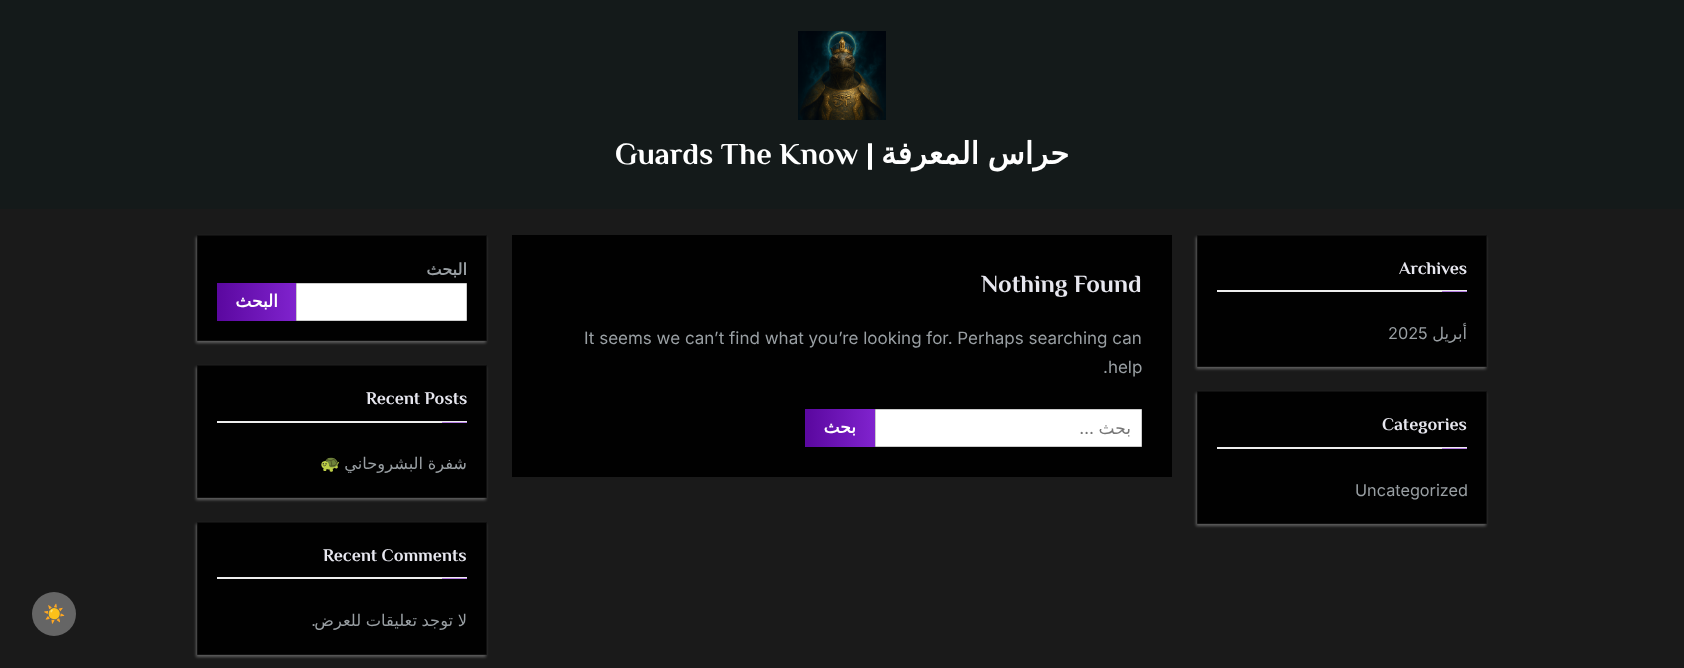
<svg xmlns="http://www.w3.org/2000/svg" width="1684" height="668">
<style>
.a{font:bold 18px Noto Color Emoji;fill:#eee}
.b{font:bold 30.5px Philosopher;fill:#fff}
.c{font:bold 30.5px Philosopher;direction:rtl;fill:#fff}
.d{font:bold 30.5px DejaVu Sans;direction:rtl;fill:#fff}
.e{font:bold 16.25px DejaVu Sans;direction:rtl;fill:#999fa3}
.f{font:bold 17px DejaVu Sans;direction:rtl;fill:#fff}
.g{font:bold 17.75px Philosopher;fill:#e7e7ef}
.h{font:16.25px Noto Color Emoji;direction:rtl;fill:#999fa3}
.i{font:16.25px DejaVu Sans;direction:rtl;fill:#999fa3}
.j{font:16.25px Inter;direction:rtl;fill:#999fa3}
.k{font:bold 24.75px Philosopher;fill:#e7e7ef}
.l{font:17px Inter;fill:#999fa3}
.m{font:17px Inter;direction:rtl;fill:#757575}
.n{font:17px DejaVu Sans;direction:rtl;fill:#757575}
.o{font:16.25px Inter;fill:#999fa3}
</style>
<defs>
<linearGradient id="g1" gradientUnits="userSpaceOnUse" x1="64" y1="302" x2="218" y2="302"><stop offset="0" stop-color="#5b08a0"/><stop offset="0.51" stop-color="#8023ce"/><stop offset="1" stop-color="#5b08a0"/></linearGradient>
<linearGradient id="g2" gradientUnits="userSpaceOnUse" x1="218" y1="302" x2="372" y2="302"><stop offset="0" stop-color="#5b08a0"/><stop offset="0.51" stop-color="#8023ce"/><stop offset="1" stop-color="#5b08a0"/></linearGradient>
<linearGradient id="g3" gradientUnits="userSpaceOnUse" x1="675" y1="428" x2="807" y2="428"><stop offset="0" stop-color="#5b08a0"/><stop offset="0.51" stop-color="#8023ce"/><stop offset="1" stop-color="#5b08a0"/></linearGradient>
<linearGradient id="g4" gradientUnits="userSpaceOnUse" x1="807" y1="428" x2="939" y2="428"><stop offset="0" stop-color="#5b08a0"/><stop offset="0.51" stop-color="#8023ce"/><stop offset="1" stop-color="#5b08a0"/></linearGradient>
</defs>
<rect width="100%" height="100%" fill="#1a1a1a"/>
<circle fill="#656565" cx="54" cy="614" r="22"/>
<path fill="#141a1a" d="M0 0h1684v209H0z"/>
<image href="1.png" x="798" y="31" width="88" height="89"/>
<path fill="#ffffff4d" filter="blur(1.5px)" d="M196 237h290v106H196z"/>
<path fill="#010101" stroke="#101010" d="M197.5 235.5h289v105H197.5z"/>
<path fill="url(#g1)" d="M217 283h1v38H217z"/>
<path fill="url(#g2)" d="M218 283h78v38H218z"/>
<path fill="#fff" stroke="#ccc" d="M296.5 283.5h170v37H296.5z"/>
<path fill="#ffffff4d" filter="blur(1.5px)" d="M196 367h290v133H196z"/>
<path fill="#010101" stroke="#101010" d="M197.5 365.5h289v132H197.5z"/>
<path fill="#eee" d="M217 421h250v2H217z"/>
<path fill="#b57de3" d="M442 422h25v1H442z"/>
<path fill="#ffffff4d" filter="blur(1.5px)" d="M196 524h290v133H196z"/>
<path fill="#010101" stroke="#101010" d="M197.5 522.5h289v132H197.5z"/>
<path fill="#eee" d="M217 577h250v2H217z"/>
<path fill="#b57de3" d="M442 578h25v1H442z"/>
<path fill="#010101" d="M512 235h660v242H512z"/>
<path fill="url(#g3)" d="M805 409h2v38H805z"/>
<path fill="url(#g4)" d="M807 409h68v38H807z"/>
<path fill="#fff" stroke="#ccc" d="M875.5 409.5h266v37H875.5z"/>
<path fill="#ffffff4d" filter="blur(1.5px)" d="M1196 237h290v132H1196z"/>
<path fill="#010101" stroke="#101010" d="M1197.5 235.5h289v131H1197.5z"/>
<path fill="#eee" d="M1217 290h250v2H1217z"/>
<path fill="#b57de3" d="M1442 291h25v1H1442z"/>
<path fill="#ffffff4d" filter="blur(1.5px)" d="M1196 393h290v133H1196z"/>
<path fill="#010101" stroke="#101010" d="M1197.5 391.5h289v132H1197.5z"/>
<path fill="#eee" d="M1217 447h250v2H1217z"/>
<path fill="#b57de3" d="M1442 448h25v1H1442z"/>
<text class="a" x="43" y="620">☀️</text>
<text class="b" x="615" y="164">Guards The Know</text>
<text class="c" x="874" y="164">|</text>
<text class="d" x="1069" y="164" word-spacing="-1">حراس المعرفة</text>
<text class="e" x="467" y="275">البحث</text>
<text class="f" x="278" y="307">البحث</text>
<text class="g" x="366" y="404">Recent Posts</text>
<text class="h" x="341" y="469">🐢</text>
<text class="i" x="467" y="469" word-spacing="-0.5">شفرة البشروحاني</text>
<text class="g" x="323" y="561">Recent Comments</text>
<text class="j" x="316" y="626">.</text>
<text class="i" x="467" y="626" word-spacing="-0.5">لا توجد تعليقات للعرض</text>
<text class="k" x="981" y="292">Nothing Found</text>
<text class="l" x="584" y="344">It seems we can’t find what you’re looking for. Perhaps searching can</text>
<text class="l" x="1103" y="373">.help</text>
<text class="f" x="856" y="433">بحث</text>
<text class="m" x="1094" y="434">…</text>
<text class="n" x="1131" y="434">بحث</text>
<text class="g" x="1399" y="274">Archives</text>
<text class="o" x="1388" y="339">2025</text>
<text class="i" x="1467" y="339">أبريل</text>
<text class="g" x="1382" y="430">Categories</text>
<text class="o" x="1355" y="496">Uncategorized</text>
</svg>
